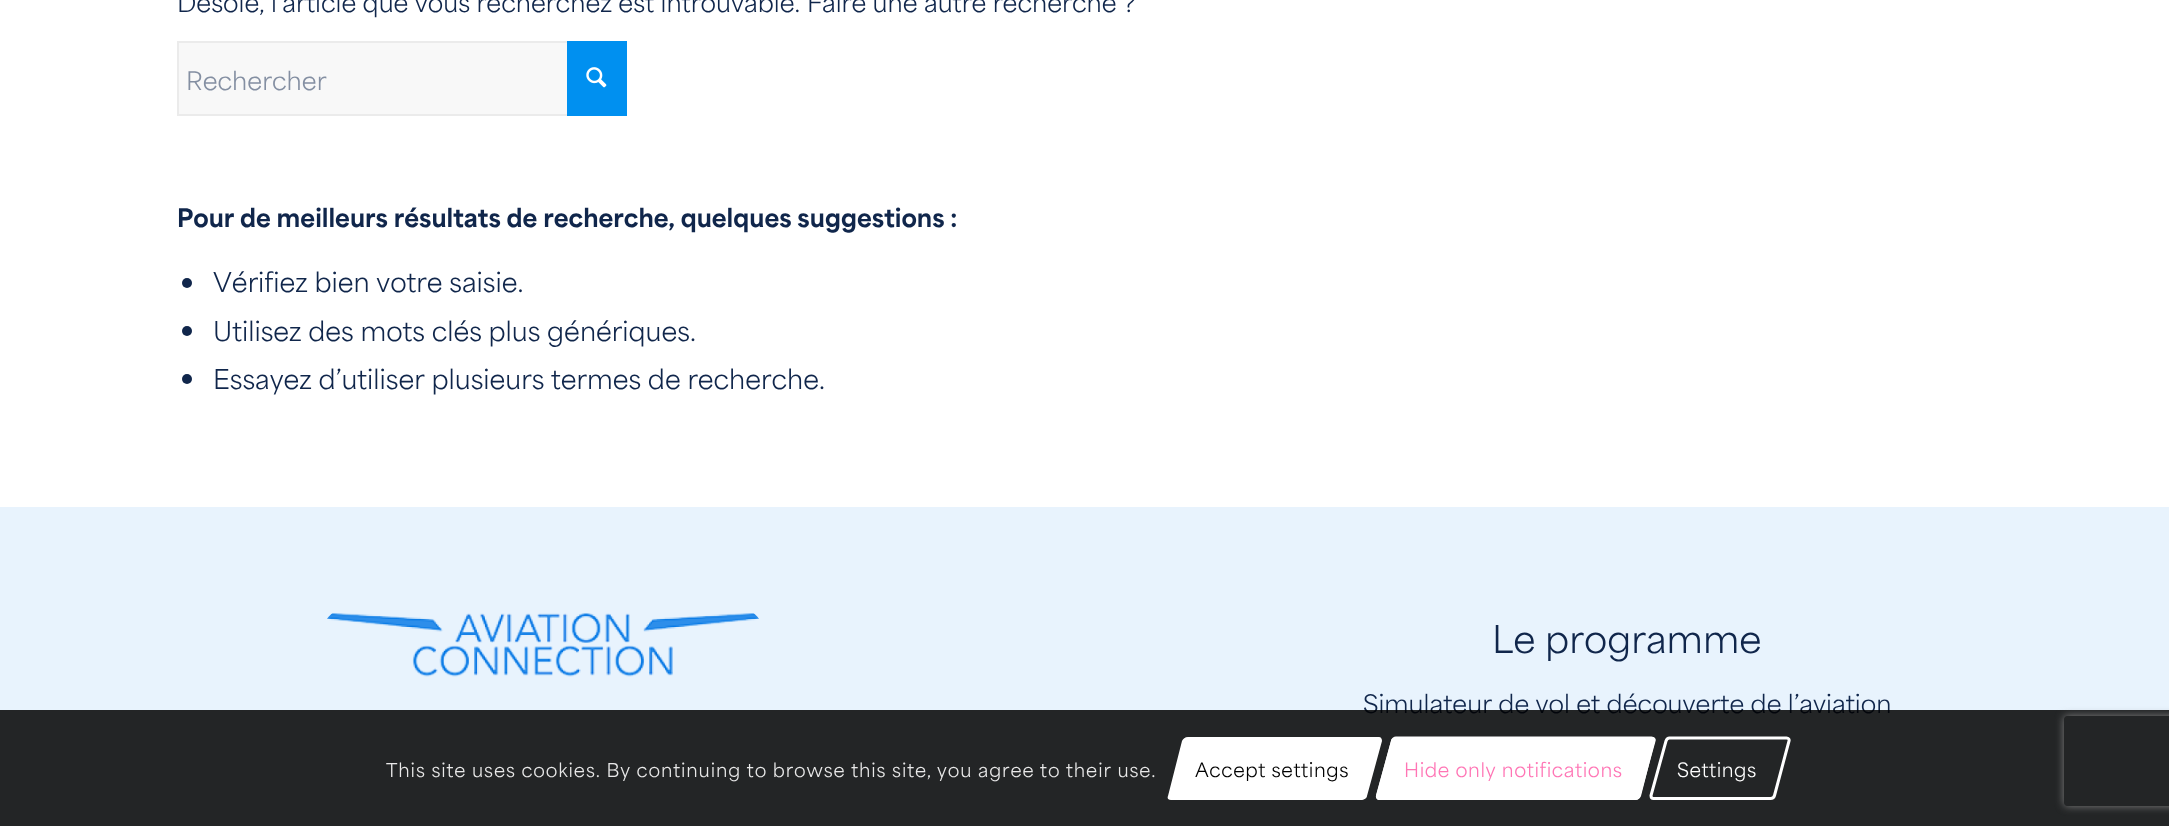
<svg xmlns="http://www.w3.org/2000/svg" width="2169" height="826">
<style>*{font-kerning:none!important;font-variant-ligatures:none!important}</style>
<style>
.a{font:24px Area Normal;fill:#10264b}
.b{font:24px Area Normal;fill:#848fa2}
.c{font:900 24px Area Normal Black;fill:#10264b}
.d{font:25.5px Area Normal;fill:#10264b}
.e{font:36px Area Normal;fill:#10264b}
.f{font:18px Area Normal;letter-spacing:0.9px;fill:#e9e9e9}
.g{font:18.6px Area Normal;letter-spacing:0.6px;fill:#000}
.h{font:18.6px Area Normal;letter-spacing:0.6px;fill:#ff75b5}
.i{font:18.6px Area Normal;letter-spacing:0.5px;fill:#fff}
</style>
<defs>
<clipPath id="clip1"><path d="M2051 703h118v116h-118zm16 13h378c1.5 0 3 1.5 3 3v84c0 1.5-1.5 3-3 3h-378c-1.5 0-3-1.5-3-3v-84c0-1.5 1.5-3 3-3z" clip-rule="evenodd"/></clipPath>
</defs>
<rect width="100%" height="100%" fill="#fff"/>
<path fill="#f8f8f8" d="M179 43h388v71H179z"/>
<path fill="none" stroke="#ebebeb" stroke-width="2" d="M178 42h448v73H178z"/>
<path fill="#0090f0" d="M567 41h60v75H567z"/>
<image href="1.png" x="586" y="67" width="21" height="21"/>
<circle fill="#10264b" cx="187" cy="283" r="5"/>
<circle fill="#10264b" cx="187" cy="331" r="5"/>
<circle fill="#10264b" cx="187" cy="379" r="5"/>
<path fill="#e8f3fd" d="M0 507h2169v319H0z"/>
<image href="2.png" x="327" y="613" width="432" height="64"/>
<text class="a" x="177" y="12">Désolé, l’article que vous recherchez est introuvable.</text>
<text class="a" x="807" y="12">Faire une autre recherche ?</text>
<text class="b" x="186" y="90">Rechercher</text>
<text class="c" x="177" y="227">Pour de meilleurs résultats de recherche, quelques suggestions :</text>
<text class="d" x="213" y="292">Vérifiez bien votre saisie.</text>
<text class="d" x="213" y="341">Utilisez des mots clés plus génériques.</text>
<text class="d" x="213" y="389">Essayez d’utiliser plusieurs termes de recherche.</text>
<text class="e" x="1492" y="653">Le programme</text>
<text class="a" x="1363" y="713">Simulateur de vol et découverte de l’aviation</text>
<path fill="#000000d9" d="M0 710h2169v116H0z"/>
<text class="f" x="386" y="777">This site uses cookies. By continuing to browse this site,</text>
<text class="f" x="937" y="777">you agree to their use.</text>
<path fill="#fff" d="M1188 737h191c2 0 3 2 3 4l-15 55c0 2-3 4-6 4h-190c-3 0-4-2-3-4l14-55c1-2 3-4 6-4z"/>
<text class="g" x="1195" y="777">Accept settings</text>
<path fill="#fff" d="M1397 737h255c3 0 4 2 3 4l-14 55c-1 2-3 4-6 4h-256c-2 0-3-2-3-4l15-55c0-2 3-4 6-4z"/>
<path fill="none" stroke="#fff" stroke-width="3" d="M1396 738h255.5c2 0 3 1.5 2.5 3l-15 54.5c0 2-2 3-3.5 3h-255.5c-2 0-3-1-2.5-3l15-54.5c0-1.5 2-3 3.5-3z"/>
<text class="h" x="1404" y="777">Hide only notifications</text>
<path fill="none" stroke="#fff" stroke-width="3" d="M1669.5 738h117c2 0 3 1.5 2.5 3l-14.5 54.5c-.5 2-2.5 3-4 3h-117c-1.5 0-2.5-1-2.5-3l15-54.5c.5-1.5 2-3 3.5-3z"/>
<text class="i" x="1677" y="777">Settings</text>
<g clip-path="url(#clip1)">
<rect fill="#808080" filter="blur(4px)" x="2064" y="716" width="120" height="90" rx="3"/>
</g>
</svg>
